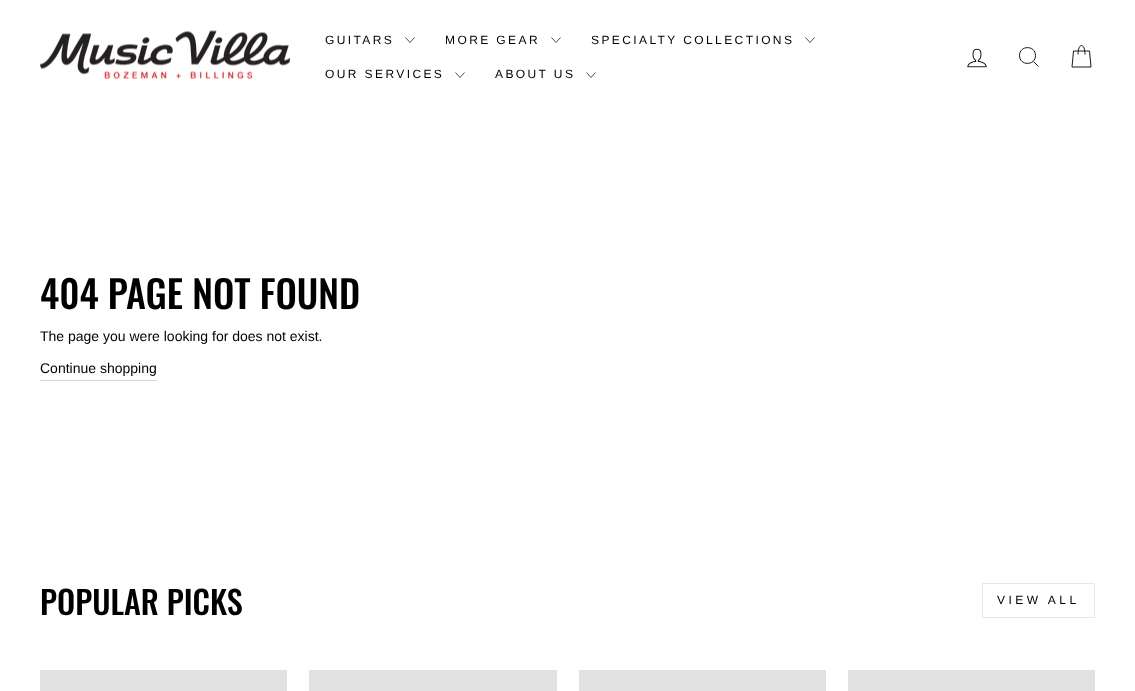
<svg xmlns="http://www.w3.org/2000/svg" width="1135" height="691">
<style>
.a{font:12px Liberation Sans;letter-spacing:2.4px;fill:#000}
.b{font:500 38px Oswald;fill:#000}
.c{font:14px Liberation Sans;fill:#000}
.d{font:500 32.25px Oswald;fill:#000}
.e{font:12px Liberation Sans;letter-spacing:3.5px;fill:#000}
</style>
<rect width="100%" height="100%" fill="#fff"/>
<image href="1.png" x="40" y="30" width="250" height="50"/>
<path fill="none" stroke="#000" stroke-width="0.7" d="M405.5 37.5l4.5 5l4.5-5"/>
<path fill="none" stroke="#000" stroke-width="0.7" d="M551.5 37.5l4.5 5l4.5-5"/>
<path fill="none" stroke="#000" stroke-width="0.7" d="M805.5 37.5l4.5 5l4.5-5"/>
<path fill="none" stroke="#000" stroke-width="0.7" d="M455.5 72.5l4.5 5l4.5-5"/>
<path fill="none" stroke="#000" stroke-width="0.7" d="M586.5 72.5l4.5 5l4.5-5"/>
<image href="2.png" x="967" y="48" width="20" height="20"/>
<path fill="none" stroke="#000" stroke-width="0.9" d="M1035.5 55.5c0 10.5-16 10.5-16 0c0-10.5 16-10.5 16 0zm3 11l-5-5"/>
<path fill="none" stroke="#000" stroke-width="0.9" d="M1078 54.5c0-12 7-12 7 0m-11.5-3.5h16l1.5 16h-19z"/>
<path fill="#d9d9d9" d="M40 380h117v1H40z"/>
<path fill="none" stroke="#e8e8e1" d="M982.5 583.5h112v34H982.5z"/>
<path fill="#e1e1e1" d="M40 670h247v21H40z"/>
<path fill="#e1e1e1" d="M309 670h248v21H309z"/>
<path fill="#e1e1e1" d="M579 670h247v21H579z"/>
<path fill="#e1e1e1" d="M848 670h247v21H848z"/>
<text class="a" x="325" y="44">GUITARS</text>
<text class="a" x="445" y="44">MORE GEAR</text>
<text class="a" x="591" y="44">SPECIALTY COLLECTIONS</text>
<text class="a" x="325" y="78">OUR SERVICES</text>
<text class="a" x="495" y="78">ABOUT US</text>
<text class="b" x="40" y="309">404 PAGE NOT FOUND</text>
<text class="c" x="40" y="341">The page you were looking for does not exist.</text>
<text class="c" x="40" y="373">Continue shopping</text>
<text class="d" x="40" y="615">POPULAR PICKS</text>
<text class="e" x="997" y="604">VIEW ALL</text>
</svg>
